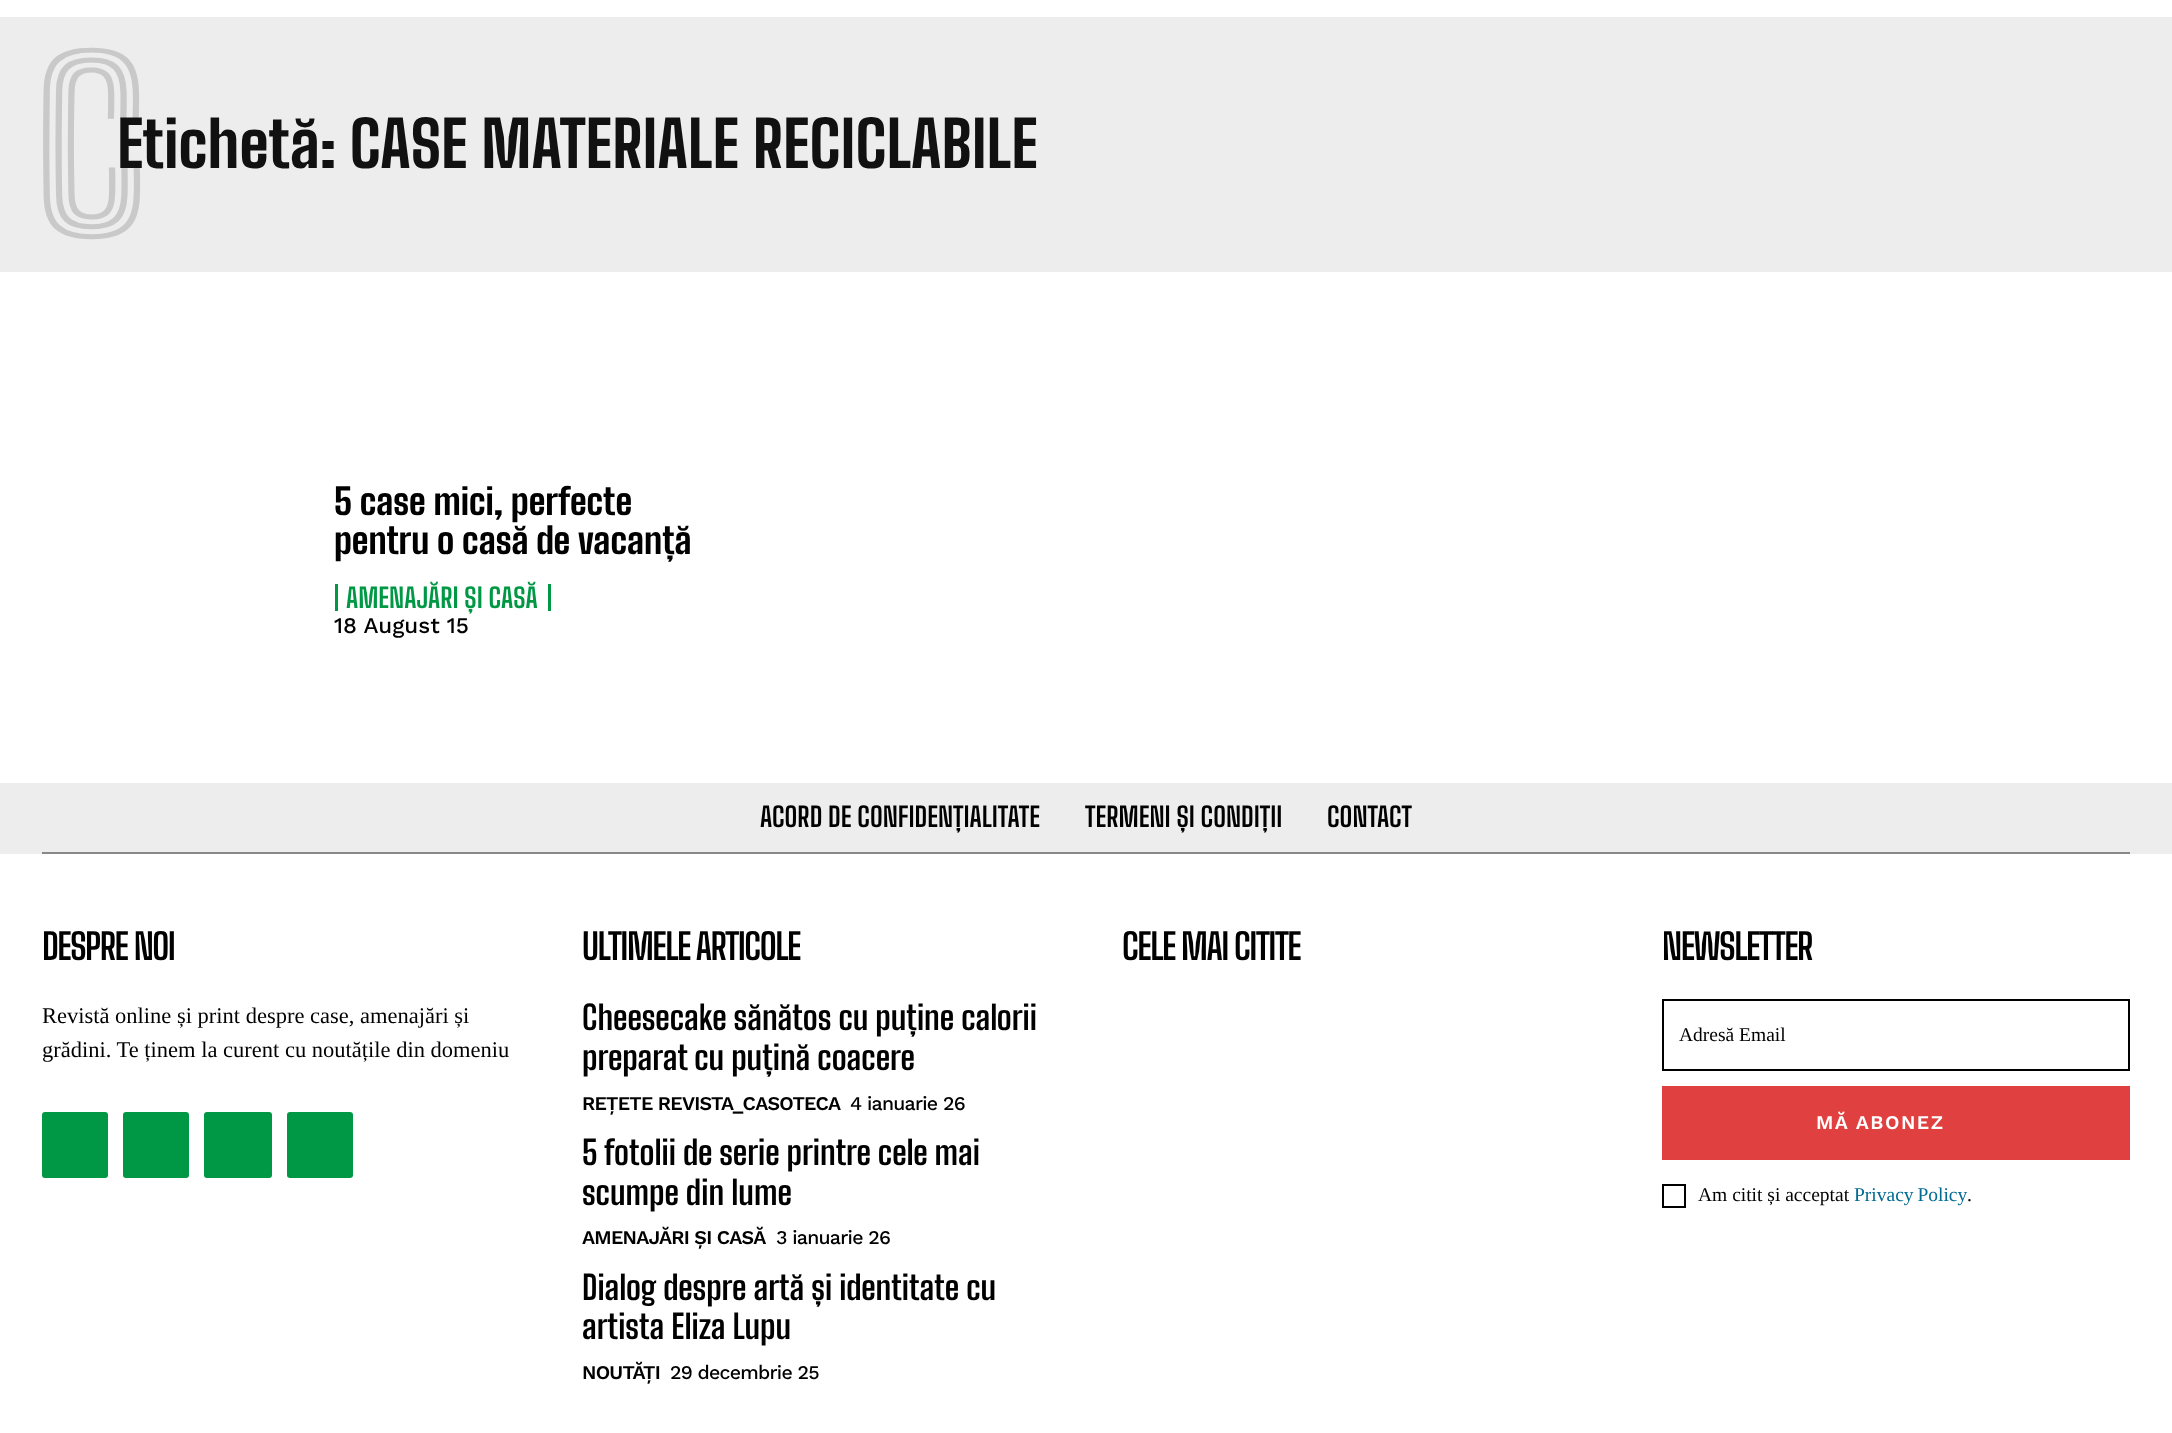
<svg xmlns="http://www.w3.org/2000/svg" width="2172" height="1433">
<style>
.a{font:800 234px Big Shoulders Inline Text;fill:#c9c9c9}
.b{font:800 63px Big Shoulders Text;fill:#111}
.c{font:800 36px Big Shoulders Text;fill:#000}
.d{font:bold 27px Big Shoulders Text;fill:#009844}
.e{font:500 22.5px Work Sans;fill:#000}
.f{font:bold 27px Big Shoulders Text;fill:#000}
.g{font:bold 36px Big Shoulders Text;letter-spacing:-1.5px;fill:#000}
.h{font:22.5px Liberation Serif;fill:#000}
.i{font:bold 33px Big Shoulders Text;fill:#000}
.j{font:600 19.5px Work Sans;letter-spacing:-0.75px;fill:#000}
.k{font:500 19.5px Work Sans;letter-spacing:-0.75px;fill:#000}
.l{font:19.5px Liberation Serif;fill:#000}
.m{font:600 19.5px Work Sans;letter-spacing:1.5px;fill:#fff}
.n{font:19.5px Liberation Serif;fill:#006a92}
</style>
<rect width="100%" height="100%" fill="#fff"/>
<path fill="#ededed" d="M0 17h2172v255H0z"/>
<path fill="#009844" d="M548 584h3v27H548z"/>
<path fill="#009844" d="M335 584h3v27H335z"/>
<path fill="#ededed" d="M0 783h2172v71H0z"/>
<path fill="#888" d="M42 852h2088v2H42z"/>
<rect fill="#009844" x="42" y="1112" width="66" height="66" rx="3"/>
<rect fill="#009844" x="123" y="1112" width="66" height="66" rx="3"/>
<rect fill="#009844" x="204" y="1112" width="68" height="66" rx="3"/>
<rect fill="#009844" x="287" y="1112" width="66" height="66" rx="3"/>
<path fill="none" stroke="#000" stroke-width="2" d="M1663 1000h466v70H1663z"/>
<path fill="#e04040" d="M1662 1086h468v74H1662z"/>
<path fill="none" stroke="#000" stroke-width="2" d="M1663 1185h22v22H1663z"/>
<text class="a" x="33" y="237">C</text>
<text class="b" x="117" y="168">Etichetă: CASE MATERIALE RECICLABILE</text>
<text class="c" x="334" y="515">5 case mici, perfecte</text>
<text class="c" x="334" y="554">pentru o casă de vacanță</text>
<text class="d" x="346" y="608">AMENAJĂRI ȘI CASĂ</text>
<text class="e" x="334" y="633">18 August 15</text>
<text class="f" x="760" y="827">ACORD DE CONFIDENȚIALITATE</text>
<text class="f" x="1085" y="827">TERMENI ȘI CONDIȚII</text>
<text class="f" x="1327" y="827">CONTACT</text>
<text class="g" x="42" y="960">DESPRE NOI</text>
<text class="h" x="42" y="1023">Revistă online și print despre case, amenajări și</text>
<text class="h" x="42" y="1057">grădini. Te ținem la curent cu noutățile din domeniu</text>
<text class="g" x="582" y="960">ULTIMELE ARTICOLE</text>
<text class="i" x="582" y="1030">Cheesecake sănătos cu puține calorii</text>
<text class="i" x="582" y="1070">preparat cu puțină coacere</text>
<text class="j" x="582" y="1110">REȚETE REVISTA_CASOTECA</text>
<text class="k" x="850" y="1110">4 ianuarie 26</text>
<text class="i" x="582" y="1165">5 fotolii de serie printre cele mai</text>
<text class="i" x="582" y="1205">scumpe din lume</text>
<text class="j" x="582" y="1244">AMENAJĂRI ȘI CASĂ</text>
<text class="k" x="776" y="1244">3 ianuarie 26</text>
<text class="i" x="582" y="1300">Dialog despre artă și identitate cu</text>
<text class="i" x="582" y="1339">artista Eliza Lupu</text>
<text class="j" x="582" y="1379">NOUTĂȚI</text>
<text class="k" x="670" y="1379">29 decembrie 25</text>
<text class="g" x="1122" y="960">CELE MAI CITITE</text>
<text class="g" x="1662" y="960">NEWSLETTER</text>
<text class="l" x="1679" y="1041">Adresă Email</text>
<text class="m" x="1816" y="1129">MĂ ABONEZ</text>
<text class="l" x="1698" y="1201">Am citit și acceptat</text>
<text class="n" x="1854" y="1201" word-spacing="-1">Privacy Policy</text>
<text class="l" x="1967" y="1201">.</text>
</svg>
